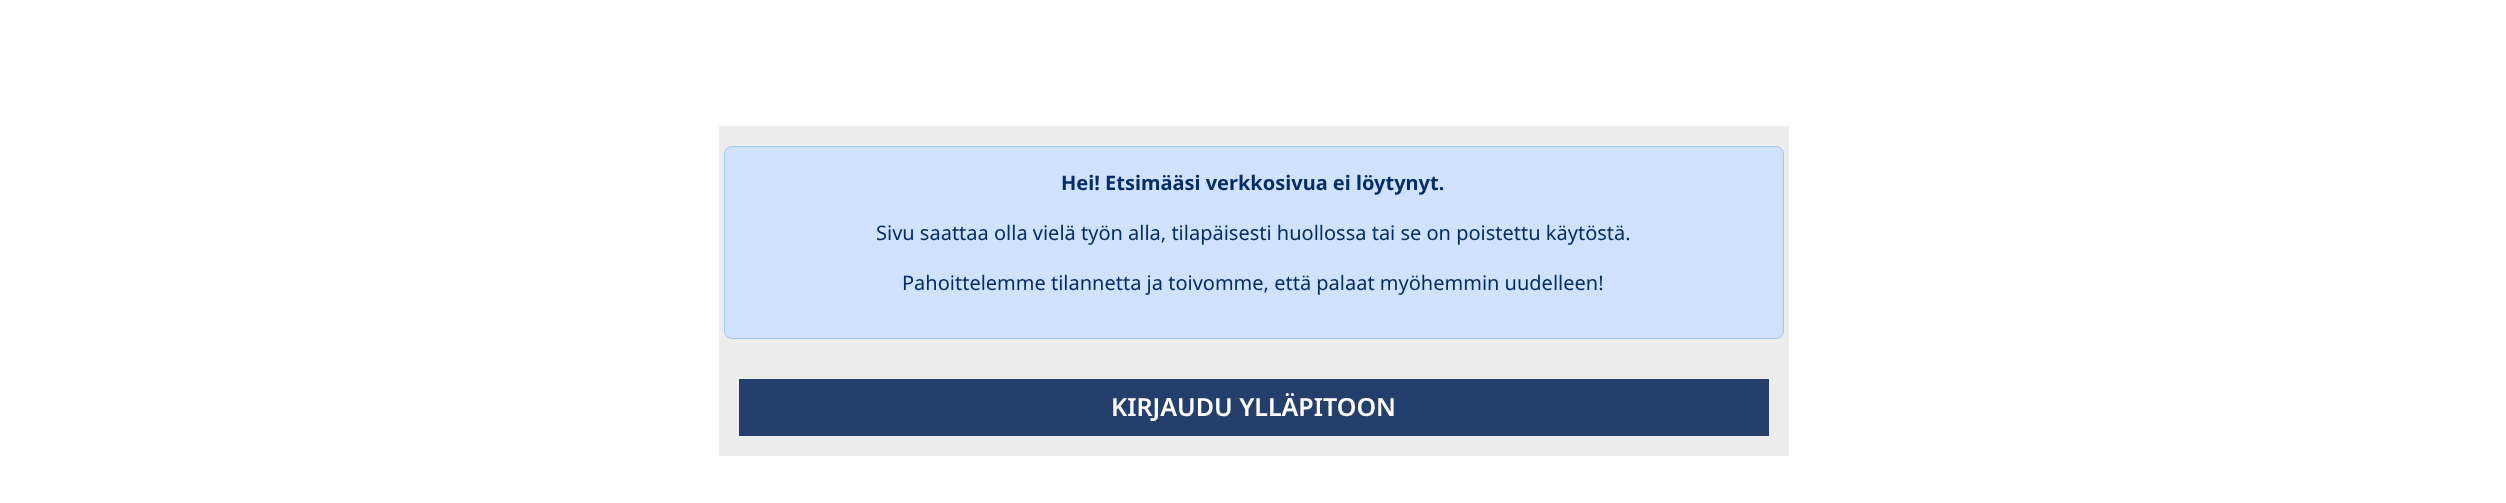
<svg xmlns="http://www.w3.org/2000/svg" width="2506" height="503">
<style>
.a{font:bold 20px Noto Sans;fill:#052c65}
.b{font:20px Noto Sans;fill:#052c65}
.c{font:600 25px Noto Sans;fill:#fff}
</style>
<rect width="100%" height="100%" fill="#fff"/>
<path fill="#ededed" d="M719 126h1070v330H719z"/>
<rect fill="#cfe2ff" stroke="#9ec5fe" x="724.5" y="146.5" width="1059" height="192" rx="7.5"/>
<path fill="#243f6c" d="M739 379h1030v57H739z"/>
<text class="a" x="1061" y="190">Hei! Etsimääsi verkkosivua ei löytynyt.</text>
<text class="b" x="876" y="240">Sivu saattaa olla vielä työn alla, tilapäisesti huollossa tai se on poistettu käytöstä.</text>
<text class="b" x="902" y="290">Pahoittelemme tilannetta ja toivomme, että palaat myöhemmin uudelleen!</text>
<text class="c" x="1111" y="416">KIRJAUDU YLLÄPITOON</text>
</svg>
